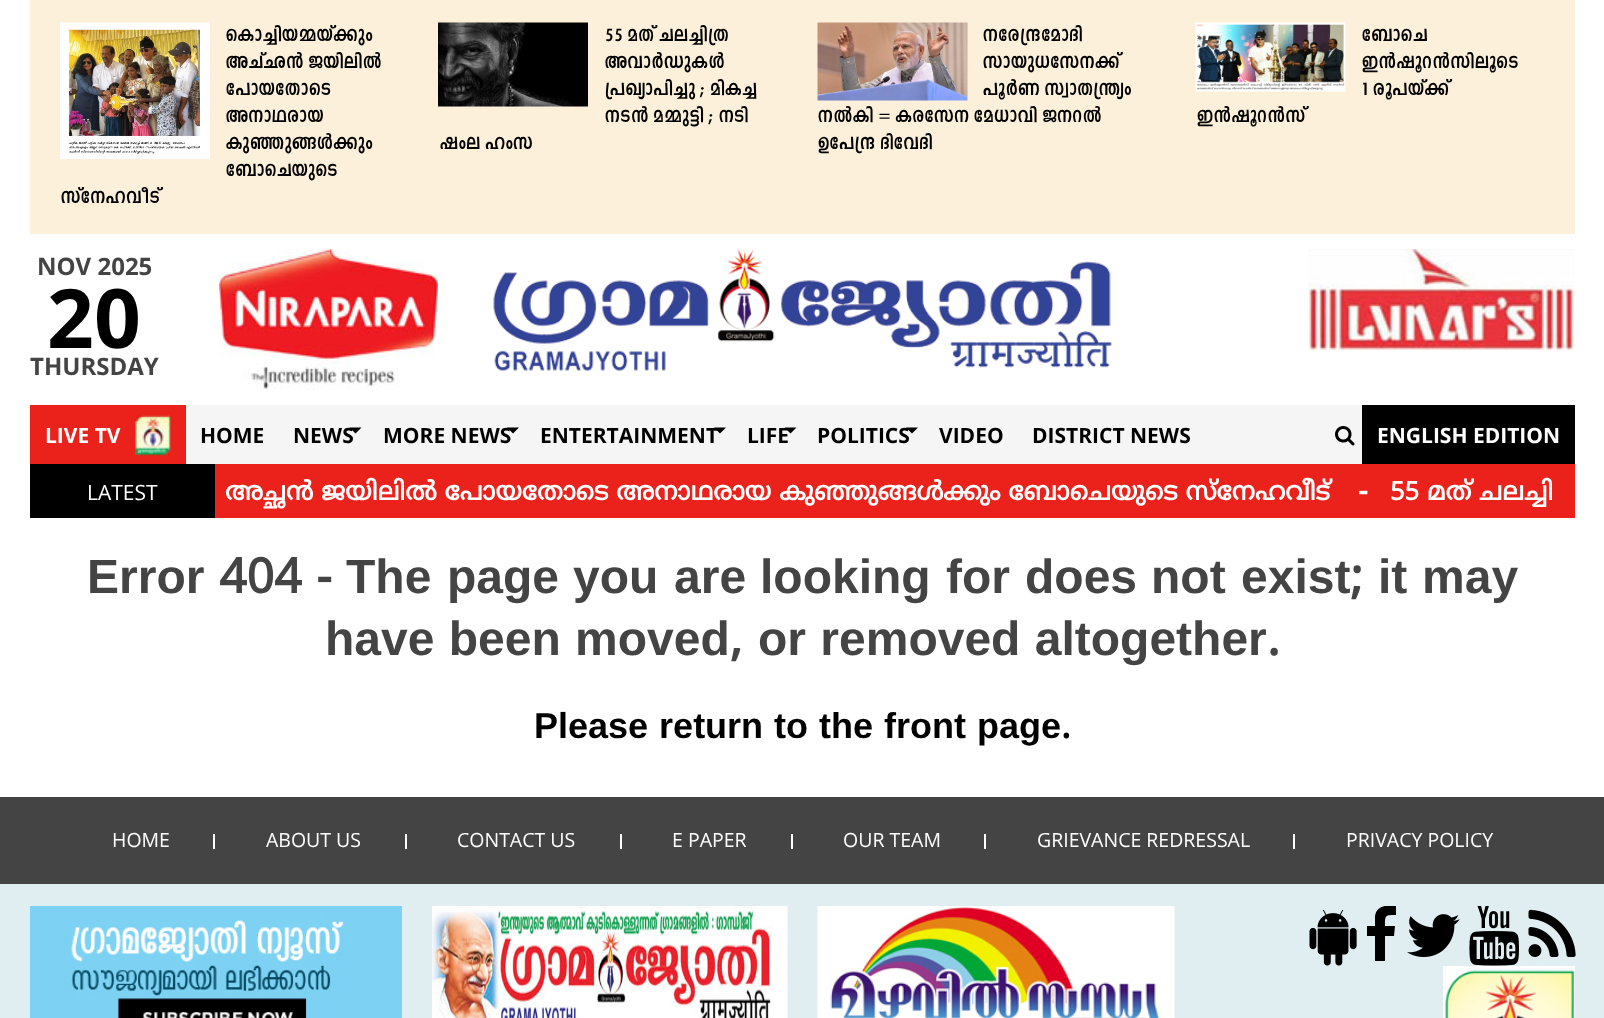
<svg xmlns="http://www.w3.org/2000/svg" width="1604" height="1018">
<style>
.a{font:bold 25.5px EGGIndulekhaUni;fill:#000}
.b{font:bold 24px Open Sans;fill:#444}
.c{font:bold 82px Open Sans;fill:#000}
.d{font:bold 21px Open Sans;fill:#fff}
.e{font:bold 21px Open Sans;fill:#000}
.f{font:21px Open Sans;fill:#fff}
.g{font:bold 25.5px Noto Sans Malayalam;fill:#fff}
.h{font:bold 30px Noto Sans Malayalam;fill:#fff}
.i{font:bold 48px Liberation Sans;fill:#444}
.j{font:bold 48px Noto Sans Malayalam;fill:#444}
.k{font:bold 36px Liberation Sans;fill:#000}
.l{font:bold 36px Noto Sans Malayalam;fill:#000}
.m{font:19.5px Open Sans;fill:#fff}
</style>
<defs>
<clipPath id="clip1"><path d="M0 906h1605v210H0z"/></clipPath>
</defs>
<rect width="100%" height="100%" fill="#fff"/>
<path fill="#fcf0da" d="M30 0h1545v234H30z"/>
<image href="1.png" x="60" y="22" width="150" height="137"/>
<image href="2.png" x="438" y="22" width="150" height="85"/>
<image href="3.png" x="817" y="22" width="151" height="79"/>
<image href="4.png" x="1195" y="22" width="151" height="70"/>
<image href="5.png" x="219" y="249" width="219" height="141"/>
<image href="6.png" x="493" y="249" width="619" height="122"/>
<image href="7.png" x="1308" y="249" width="267" height="102"/>
<path fill="#f5f5f5" d="M186 405h1176v59H186z"/>
<path fill="#eb221b" d="M30 405h156v59H30z"/>
<image href="8.png" x="135" y="415" width="36" height="41"/>
<path fill="#000" d="M349.5 427.5h12l-6 6z"/>
<path fill="#000" d="M507 427.5h12l-6 6z"/>
<path fill="#000" d="M714 427.5h12l-6 6z"/>
<path fill="#000" d="M784.5 427.5h12l-6 6z"/>
<path fill="#000" d="M906 427.5h12l-6 6z"/>
<image href="9.png" x="1335" y="426" width="20" height="20"/>
<path fill="#000" d="M1362 405h213v59H1362z"/>
<path fill="#000" d="M30 464h185v54H30z"/>
<path fill="#eb221b" d="M215 464h1360v54H215z"/>
<path fill="#444" d="M0 797h1604v87H0z"/>
<path fill="#fff" d="M213 834h2v15H213z"/>
<path fill="#fff" d="M405 834h2v15H405z"/>
<path fill="#fff" d="M620 834h2v15H620z"/>
<path fill="#fff" d="M791 834h2v15H791z"/>
<path fill="#fff" d="M984 834h2v15H984z"/>
<path fill="#fff" d="M1293 834h2v15H1293z"/>
<path fill="#e0eef1" d="M0 884h1604v134H0z"/>
<image href="10.png" x="30" y="906" width="372" height="112"/>
<image href="11.png" x="432" y="906" width="356" height="112"/>
<image href="12.png" x="817" y="906" width="358" height="112"/>
<image href="13.png" x="1309" y="909" width="48" height="57"/>
<g clip-path="url(#clip1)">
<path fill="#000" d="M1396 906v9c-11 0-11 0-11 11h10l-1 10h-9v25h-10v-25h-8v-10h8v-10c2-11 12-11 21-10z"/>
</g>
<image href="14.png" x="1407" y="914" width="53" height="43"/>
<image href="15.png" x="1469" y="906" width="50" height="60"/>
<image href="16.png" x="1528" y="909" width="48" height="48"/>
<image href="17.png" x="1443" y="966" width="132" height="52"/>
<text class="a" x="225" y="41">കൊച്ചിയമ്മയ്ക്കും</text>
<text class="a" x="225" y="68">അച്ഛന്‍ ജയിലില്‍</text>
<text class="a" x="225" y="95">പോയതോടെ</text>
<text class="a" x="225" y="122">അനാഥരായ</text>
<text class="a" x="225" y="149">കുഞ്ഞുങ്ങള്‍ക്കും</text>
<text class="a" x="225" y="176">ബോചെയുടെ</text>
<text class="a" x="60" y="203">സ്‌നേഹവീട്</text>
<text class="a" x="604" y="41">55 മത് ചലച്ചിത്ര</text>
<text class="a" x="604" y="68">അവാർഡുകൾ</text>
<text class="a" x="604" y="95">പ്രഖ്യാപിച്ചു ; മികച്ച</text>
<text class="a" x="604" y="122">നടന്‍ മമ്മുട്ടി ; നടി</text>
<text class="a" x="439" y="149">ഷംല ഹംസ</text>
<text class="a" x="982" y="41">നരേന്ദ്രമോദി</text>
<text class="a" x="982" y="68">സായുധസേനക്ക്</text>
<text class="a" x="982" y="95">പൂർണ സ്വാതന്ത്ര്യം</text>
<text class="a" x="817" y="122">നൽകി = കരസേന മേധാവി ജനറൽ</text>
<text class="a" x="817" y="149">ഉപേന്ദ്ര ദിവേദി</text>
<text class="a" x="1361" y="41">ബോചെ</text>
<text class="a" x="1361" y="68">ഇന്‍ഷൂറന്‍സിലൂടെ</text>
<text class="a" x="1361" y="95">1 രൂപയ്ക്ക്</text>
<text class="a" x="1196" y="122">ഇന്‍ഷൂറന്‍സ്</text>
<text class="b" x="37" y="275">NOV 2025</text>
<text class="c" x="47" y="348">20</text>
<text class="b" x="30" y="375">THURSDAY</text>
<text class="d" x="45" y="443">LIVE TV</text>
<text class="e" x="200" y="443">HOME</text>
<text class="e" x="293" y="443">NEWS</text>
<text class="e" x="383" y="443">MORE NEWS</text>
<text class="e" x="540" y="443">ENTERTAINMENT</text>
<text class="e" x="747" y="443">LIFE</text>
<text class="e" x="817" y="443">POLITICS</text>
<text class="e" x="939" y="443">VIDEO</text>
<text class="e" x="1032" y="443">DISTRICT NEWS</text>
<text class="d" x="1377" y="443">ENGLISH EDITION</text>
<text class="f" x="87" y="500">LATEST</text>
<text class="g" x="225" y="500">അച്ഛന്‍ ജയിലില്‍ പോയതോടെ അനാഥരായ കുഞ്ഞുങ്ങള്‍ക്കും ബോചെയുടെ സ്‌നേഹവീട്</text>
<text class="h" x="1358" y="501">-</text>
<text class="g" x="1390" y="500">55 മത് ചലച്ചി</text>
<text class="i" x="87" y="593">Error</text>
<text class="j" x="219" y="593">404 -</text>
<text class="i" x="346" y="593">The</text>
<text class="i" x="447" y="593">page</text>
<text class="i" x="573" y="593">you</text>
<text class="i" x="674" y="593">are</text>
<text class="i" x="760" y="593">looking</text>
<text class="i" x="946" y="593">for</text>
<text class="i" x="1025" y="593">does</text>
<text class="i" x="1151" y="593">not</text>
<text class="i" x="1241" y="593">exist</text>
<text class="j" x="1350" y="593">;</text>
<text class="i" x="1378" y="593">it</text>
<text class="i" x="1422" y="593">may</text>
<text class="i" x="325" y="655" word-spacing="1">have been moved</text>
<text class="j" x="730" y="655">,</text>
<text class="i" x="758" y="655" word-spacing="1">or removed altogether</text>
<text class="j" x="1267" y="655">.</text>
<text class="k" x="534" y="738" word-spacing="1">Please return to the front page</text>
<text class="l" x="1061" y="738">.</text>
<text class="m" x="112" y="847">HOME</text>
<text class="m" x="266" y="847">ABOUT US</text>
<text class="m" x="457" y="847">CONTACT US</text>
<text class="m" x="672" y="847">E PAPER</text>
<text class="m" x="843" y="847">OUR TEAM</text>
<text class="m" x="1037" y="847">GRIEVANCE REDRESSAL</text>
<text class="m" x="1346" y="847">PRIVACY POLICY</text>
</svg>
